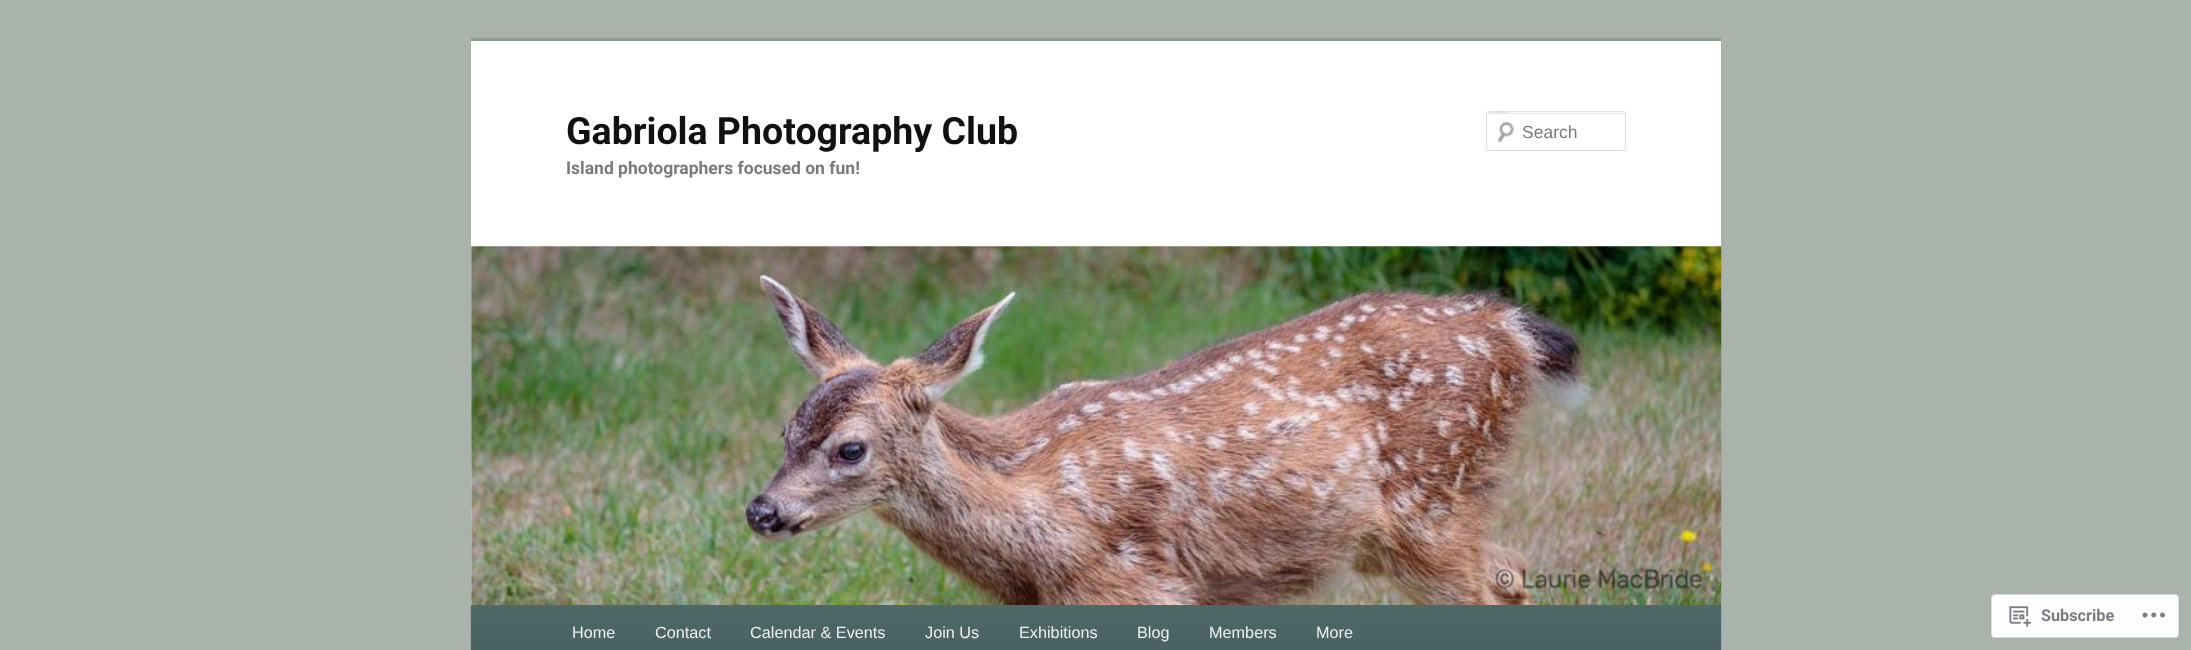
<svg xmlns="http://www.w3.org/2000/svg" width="2191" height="650">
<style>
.a{font:bold 37.5px Roboto;fill:#111}
.b{font:bold 17.5px Roboto;fill:#7a7a7a}
.c{font:17.5px Liberation Sans;fill:#7a7a7a}
.d{font:16.25px Liberation Sans;fill:#eee}
.e{font:bold 16.25px Roboto;fill:#797d83}
</style>
<defs>
<linearGradient id="g1" gradientUnits="userSpaceOnUse" x1="1096" y1="605" x2="1096" y2="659"><stop offset="0" stop-color="#4e6868"/><stop offset="1" stop-color="#486060"/></linearGradient>
</defs>
<rect width="100%" height="100%" fill="#aab3ab"/>
<path fill="#fff" d="M471 41h1250v564H471z"/>
<path fill="#8d9a8e" d="M471 38h1250v3H471z"/>
<image href="1.png" x="1497" y="121" width="17" height="22"/>
<path fill="#e6e6e6" d="M1489 114h135l1 1v-2h-113c-1 0-24-6-24 2c0-1 0-1 1-1z"/>
<rect fill="none" stroke="#ddd" x="1486.5" y="111.5" width="139" height="39" rx="2"/>
<path fill="#00000033" filter="blur(1px)" d="M471 606h1250v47H471z"/>
<image href="2.png" x="471" y="246" width="1251" height="359"/>
<path fill="url(#g1)" d="M471 605h1250v45H471z"/>
<rect fill="#fdfdfd" stroke="#dbdbdd" x="1991.5" y="594.5" width="187" height="43" rx="3.5"/>
<image href="3.png" x="2009" y="606" width="22" height="21"/>
<image href="4.png" x="2142" y="612" width="23" height="6"/>
<text class="a" x="566" y="144">Gabriola Photography Club</text>
<text class="b" x="566" y="174">Island photographers focused on fun!</text>
<text class="c" x="1522" y="138">Search</text>
<text class="d" x="572" y="638">Home</text>
<text class="d" x="655" y="638">Contact</text>
<text class="d" x="750" y="638">Calendar &amp; Events</text>
<text class="d" x="925" y="638">Join Us</text>
<text class="d" x="1019" y="638">Exhibitions</text>
<text class="d" x="1137" y="638">Blog</text>
<text class="d" x="1209" y="638">Members</text>
<text class="d" x="1316" y="638">More</text>
<text class="e" x="2041" y="621">Subscribe</text>
</svg>
